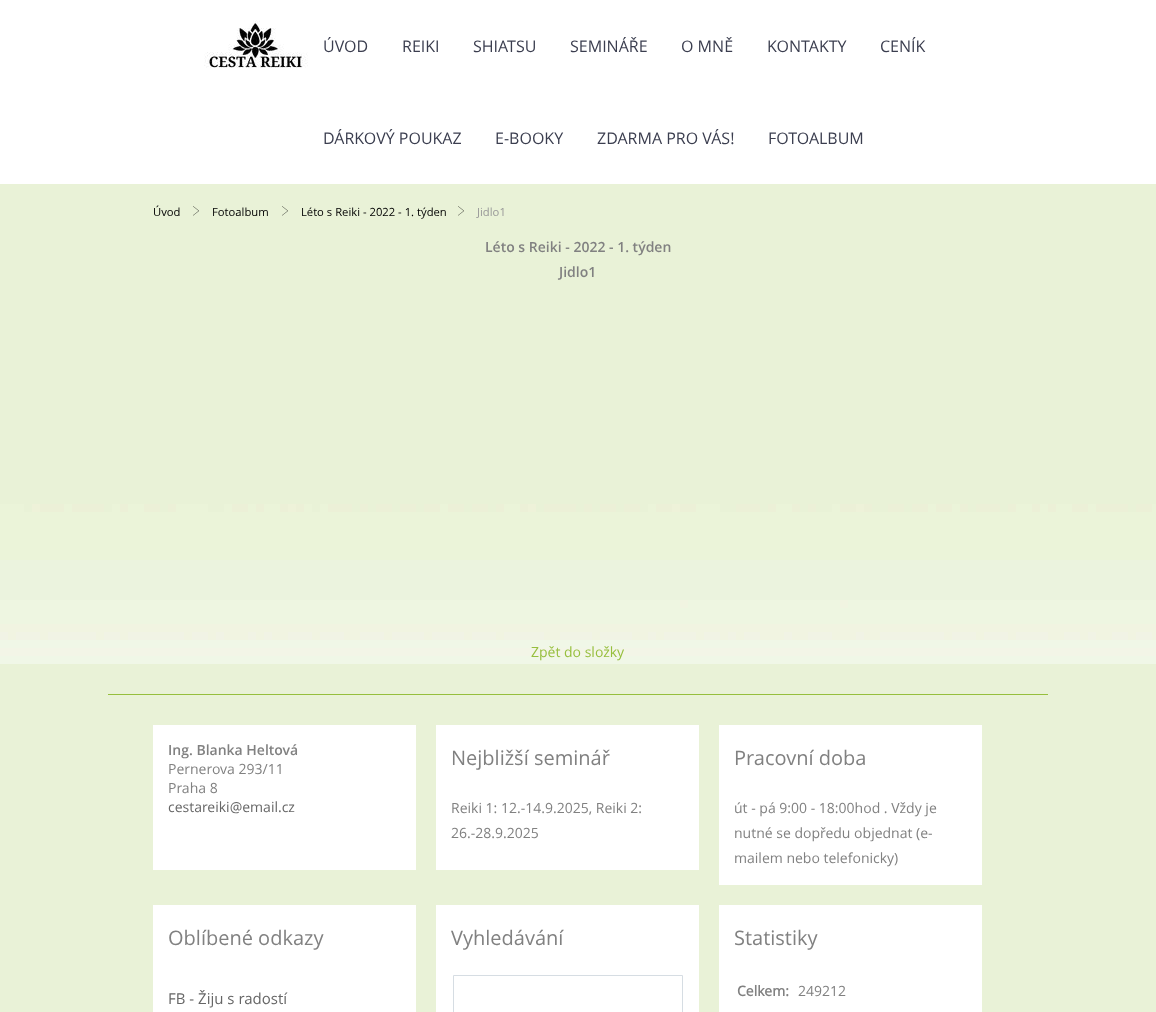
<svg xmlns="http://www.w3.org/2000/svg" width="1156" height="1012">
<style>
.a{font:16px Open Sans;fill:#3b3e4f}
.b{font:11.25px Open Sans;fill:#000}
.c{font:11.25px Open Sans;fill:#999}
.d{font:600 14px Open Sans;fill:#818181}
.e{font:14px Open Sans;fill:#96bf3d}
.f{font:14px Open Sans;fill:#818181}
.g{font:14px Open Sans;fill:#666}
.h{font:20px Open Sans;fill:#818181}
.i{font:15px Open Sans;fill:#666}
.j{font:bold 14px Open Sans;fill:#818181}
</style>
<rect width="100%" height="100%" fill="#e9f2d7"/>
<path fill="#fff" d="M0 0h1156v184H0z"/>
<image href="1.png" x="204" y="20" width="104" height="48"/>
<image href="2.png" x="0" y="184" width="1156" height="480"/>
<image href="3.png" x="193" y="206" width="6" height="10"/>
<image href="3.png" x="282" y="206" width="6" height="10"/>
<image href="3.png" x="458" y="206" width="6" height="10"/>
<path fill="#96bf3d" d="M108 694h940v1H108z"/>
<path fill="#fff" d="M153 725h263v145H153z"/>
<path fill="#fff" d="M436 725h263v145H436z"/>
<path fill="#fff" d="M719 725h263v160H719z"/>
<path fill="#fff" d="M153 905h263v107H153z"/>
<path fill="#fff" d="M436 905h263v107H436z"/>
<path fill="none" stroke="#d6dde3" d="M453.5 975.5h229v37H453.5z"/>
<path fill="#fff" d="M719 905h263v107H719z"/>
<text class="a" x="323" y="52">ÚVOD</text>
<text class="a" x="402" y="52">REIKI</text>
<text class="a" x="473" y="52">SHIATSU</text>
<text class="a" x="570" y="52">SEMINÁŘE</text>
<text class="a" x="681" y="52">O MNĚ</text>
<text class="a" x="767" y="52">KONTAKTY</text>
<text class="a" x="880" y="52">CENÍK</text>
<text class="a" x="323" y="144">DÁRKOVÝ POUKAZ</text>
<text class="a" x="495" y="144">E-BOOKY</text>
<text class="a" x="597" y="144">ZDARMA PRO VÁS!</text>
<text class="a" x="768" y="144">FOTOALBUM</text>
<text class="b" x="153" y="216">Úvod</text>
<text class="b" x="212" y="216">Fotoalbum</text>
<text class="b" x="301" y="216">Léto s Reiki - 2022 - 1. týden</text>
<text class="c" x="477" y="216">Jidlo1</text>
<text class="d" x="485" y="252">Léto s Reiki - 2022 - 1. týden</text>
<text class="d" x="559" y="277">Jidlo1</text>
<text class="e" x="531" y="657">Zpět do složky</text>
<text class="d" x="168" y="755">Ing. Blanka Heltová</text>
<text class="f" x="168" y="774">Pernerova 293/11</text>
<text class="f" x="168" y="793">Praha 8</text>
<text class="g" x="168" y="812">cestareiki@email.cz</text>
<text class="h" x="451" y="765">Nejbližší seminář</text>
<text class="f" x="451" y="813">Reiki 1: 12.-14.9.2025, Reiki 2:</text>
<text class="f" x="451" y="838">26.-28.9.2025</text>
<text class="h" x="734" y="765">Pracovní doba</text>
<text class="f" x="734" y="813">út - pá 9:00 - 18:00hod . Vždy je</text>
<text class="f" x="734" y="838">nutné se dopředu objednat (e-</text>
<text class="f" x="734" y="863">mailem nebo telefonicky)</text>
<text class="h" x="168" y="945">Oblíbené odkazy</text>
<text class="i" x="168" y="1004">FB - Žiju s radostí</text>
<text class="h" x="451" y="945">Vyhledávání</text>
<text class="h" x="734" y="945">Statistiky</text>
<text class="j" x="737" y="996">Celkem:</text>
<text class="f" x="798" y="996">249212</text>
</svg>
